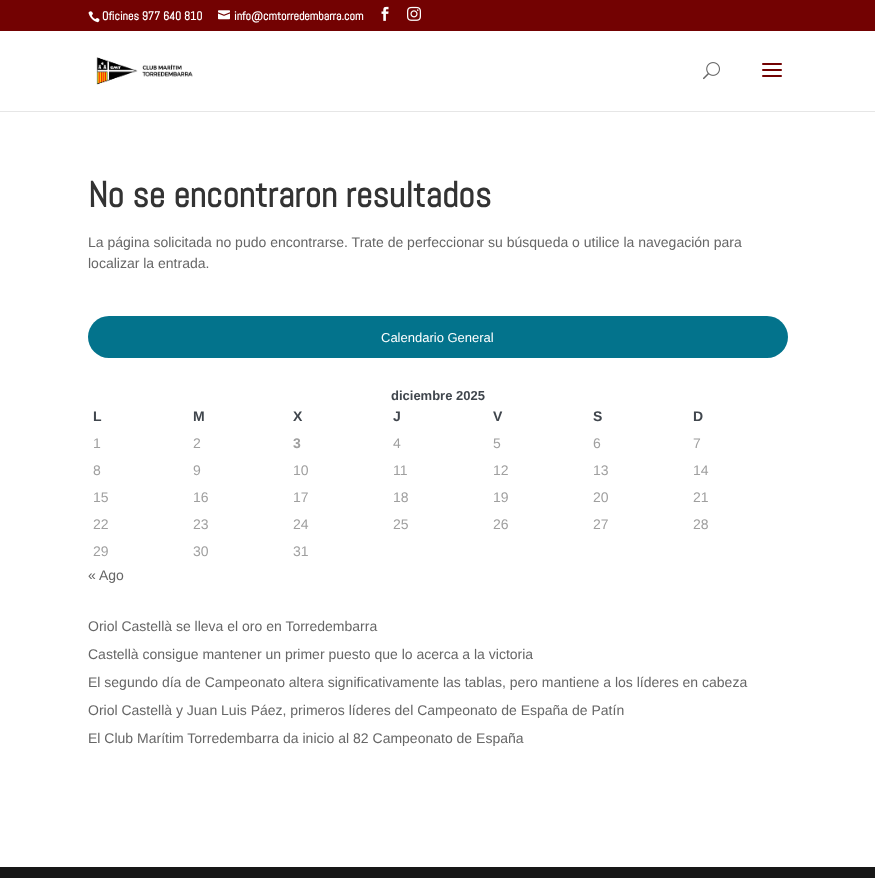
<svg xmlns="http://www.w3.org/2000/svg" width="875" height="878">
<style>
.a{font:bold 12px Abel;fill:#fff}
.b{font:bold 36px Abel;fill:#333}
.c{font:14px Liberation Sans;fill:#666}
.d{font:13px Liberation Sans;fill:#fff}
.e{font:bold 13px Liberation Sans;fill:#40464d}
.f{font:bold 14px Liberation Sans;fill:#40464d}
.g{font:14px Liberation Sans;fill:#9f9f9f}
.h{font:bold 14px Liberation Sans;fill:#9f9f9f}
</style>
<rect width="100%" height="100%" fill="#fff"/>
<path fill="#730202" d="M0 0h875v31H0z"/>
<image href="1.png" x="88" y="11" width="12" height="12"/>
<image href="2.png" x="218" y="10" width="12" height="10"/>
<image href="3.png" x="381" y="6" width="8" height="15"/>
<image href="4.png" x="407" y="6" width="14" height="15"/>
<path fill="#e6e6e6" d="M0 111h875v1H0z"/>
<image href="5.png" x="96" y="57" width="97" height="28"/>
<image href="6.png" x="703" y="62" width="17" height="18"/>
<image href="7.png" x="762" y="63" width="20" height="14"/>
<rect fill="#03738c" x="88" y="316" width="700" height="42" rx="21"/>
<path fill="#171717" d="M0 867h875v11H0z"/>
<text class="a" x="102" y="20">Oficines 977 640 810</text>
<text class="a" x="234" y="20">info@cmtorredembarra.com</text>
<text class="b" x="88" y="207">No se encontraron resultados</text>
<text class="c" x="88" y="247">La página solicitada no pudo encontrarse. Trate de perfeccionar su búsqueda o utilice la navegación para</text>
<text class="c" x="88" y="268">localizar la entrada.</text>
<text class="d" x="381" y="342">Calendario General</text>
<text class="e" x="391" y="400">diciembre 2025</text>
<text class="f" x="93" y="421">L</text>
<text class="f" x="193" y="421">M</text>
<text class="f" x="293" y="421">X</text>
<text class="f" x="393" y="421">J</text>
<text class="f" x="493" y="421">V</text>
<text class="f" x="593" y="421">S</text>
<text class="f" x="693" y="421">D</text>
<text class="g" x="93" y="448">1</text>
<text class="g" x="193" y="448">2</text>
<text class="h" x="293" y="448">3</text>
<text class="g" x="393" y="448">4</text>
<text class="g" x="493" y="448">5</text>
<text class="g" x="593" y="448">6</text>
<text class="g" x="693" y="448">7</text>
<text class="g" x="93" y="475">8</text>
<text class="g" x="193" y="475">9</text>
<text class="g" x="293" y="475">10</text>
<text class="g" x="393" y="475">11</text>
<text class="g" x="493" y="475">12</text>
<text class="g" x="593" y="475">13</text>
<text class="g" x="693" y="475">14</text>
<text class="g" x="93" y="502">15</text>
<text class="g" x="193" y="502">16</text>
<text class="g" x="293" y="502">17</text>
<text class="g" x="393" y="502">18</text>
<text class="g" x="493" y="502">19</text>
<text class="g" x="593" y="502">20</text>
<text class="g" x="693" y="502">21</text>
<text class="g" x="93" y="529">22</text>
<text class="g" x="193" y="529">23</text>
<text class="g" x="293" y="529">24</text>
<text class="g" x="393" y="529">25</text>
<text class="g" x="493" y="529">26</text>
<text class="g" x="593" y="529">27</text>
<text class="g" x="693" y="529">28</text>
<text class="g" x="93" y="556">29</text>
<text class="g" x="193" y="556">30</text>
<text class="g" x="293" y="556">31</text>
<text class="c" x="88" y="580">« Ago</text>
<text class="c" x="88" y="631">Oriol Castellà se lleva el oro en Torredembarra</text>
<text class="c" x="88" y="659">Castellà consigue mantener un primer puesto que lo acerca a la victoria</text>
<text class="c" x="88" y="687">El segundo día de Campeonato altera significativamente las tablas, pero mantiene a los líderes en cabeza</text>
<text class="c" x="88" y="715">Oriol Castellà y Juan Luis Páez, primeros líderes del Campeonato de España de Patín</text>
<text class="c" x="88" y="743">El Club Marítim Torredembarra da inicio al 82 Campeonato de España</text>
</svg>
